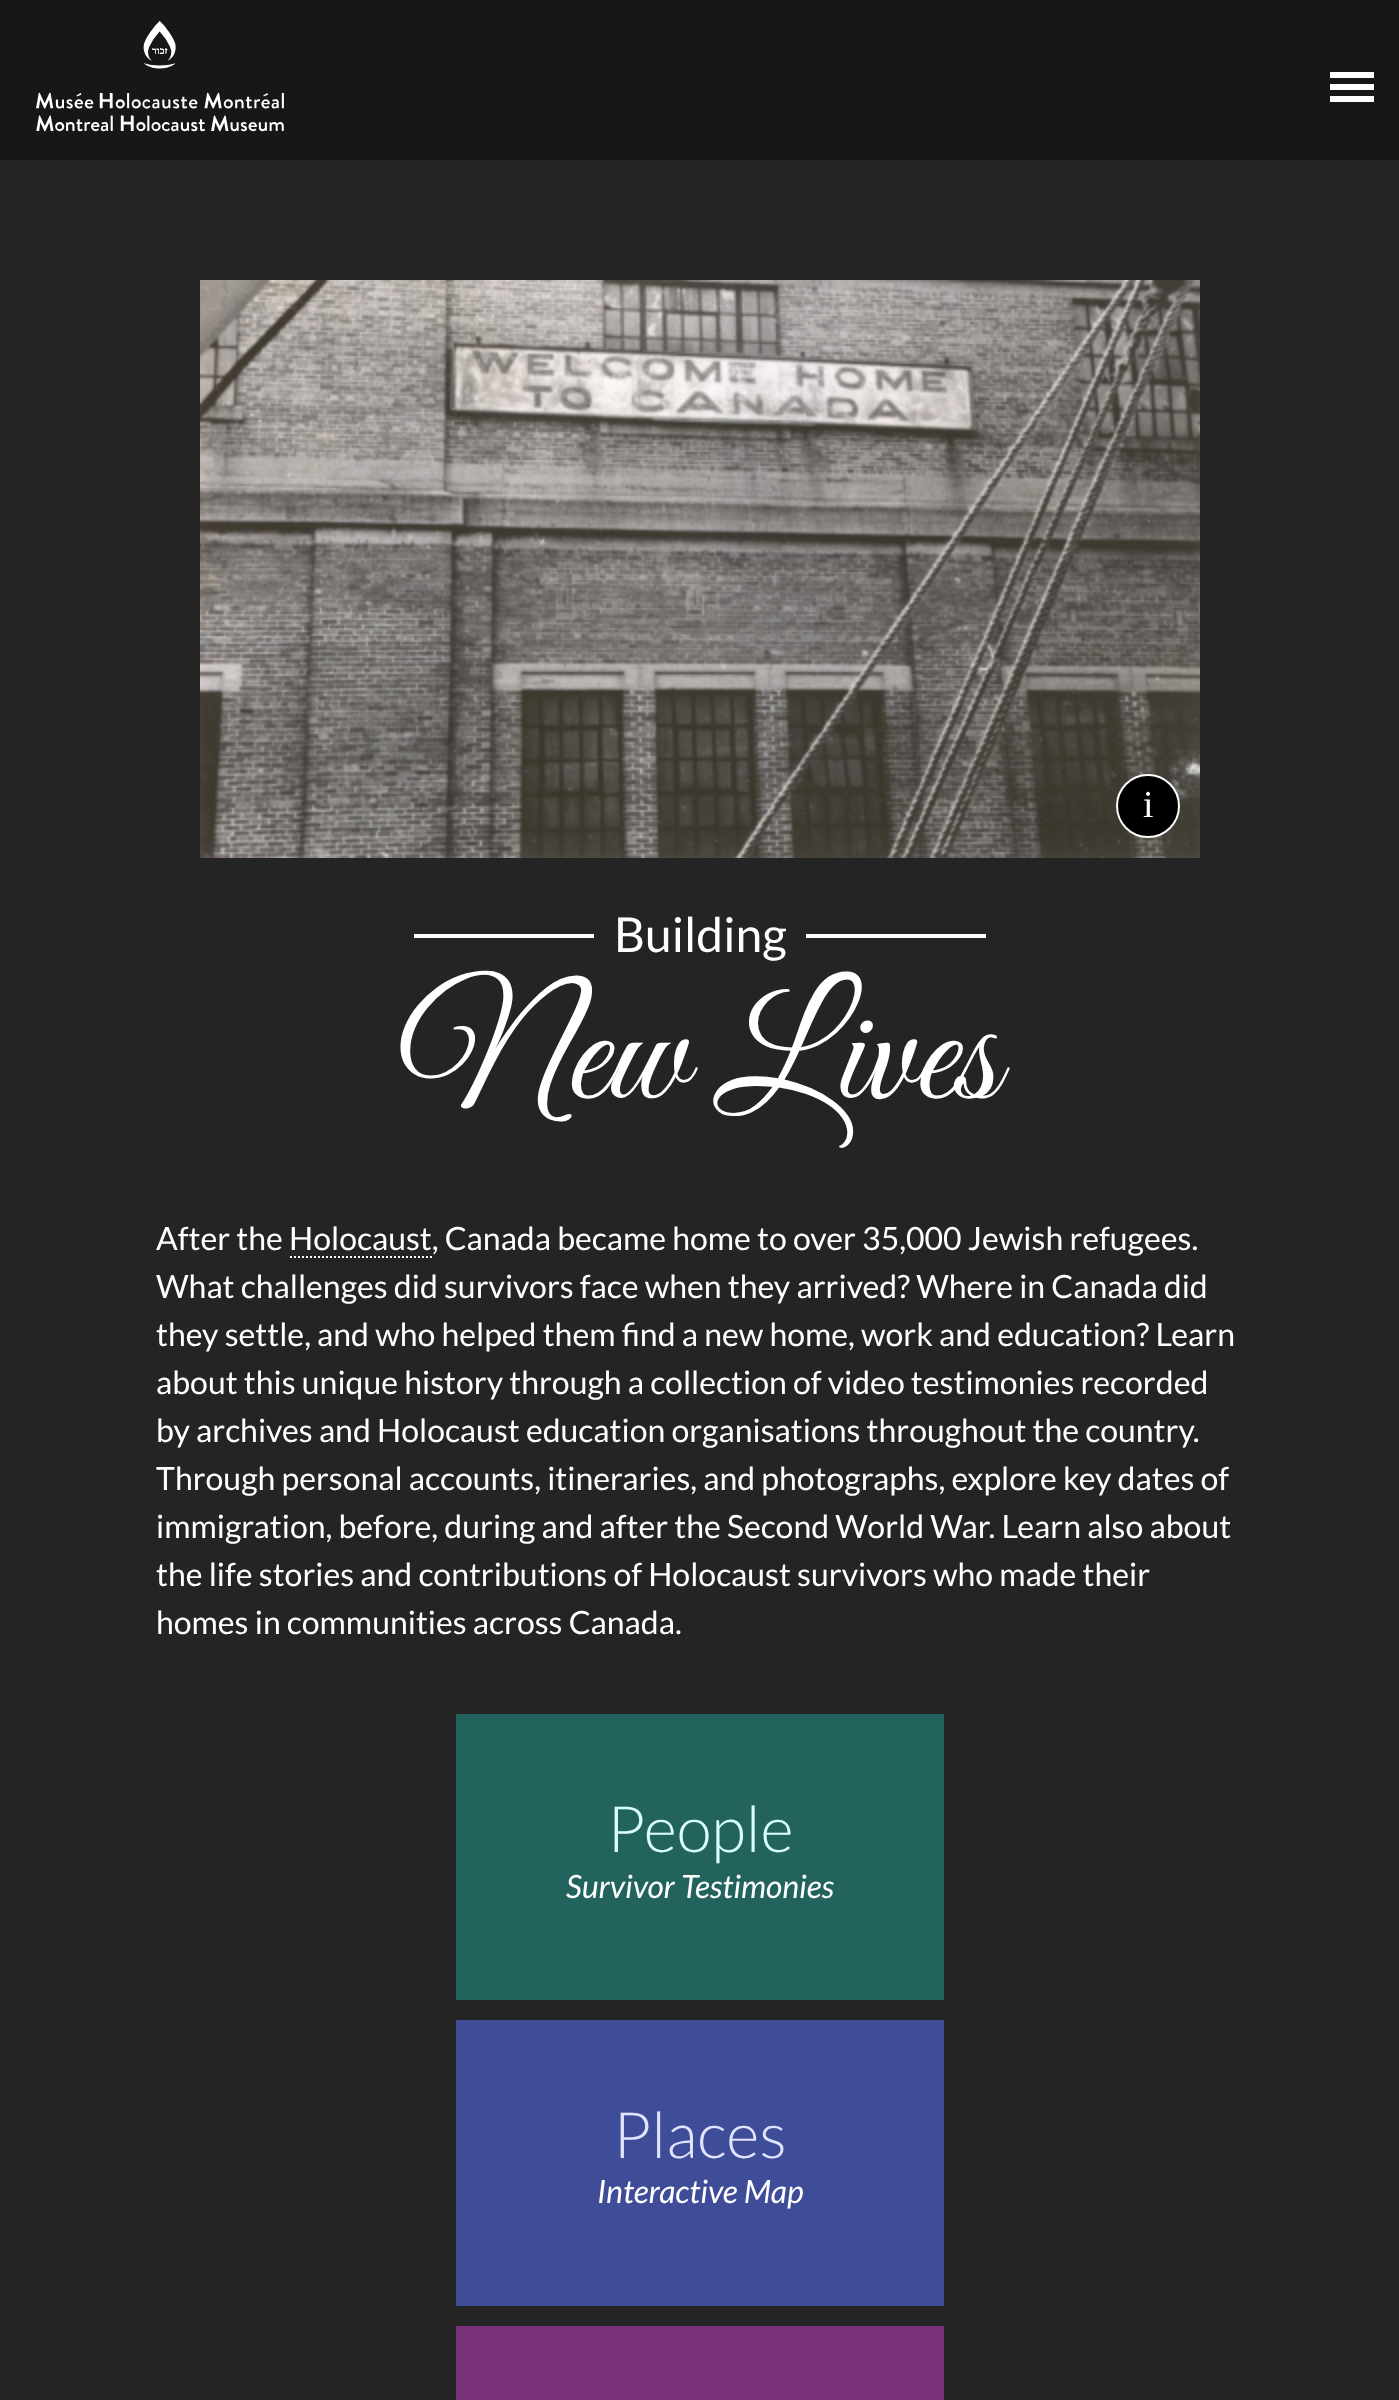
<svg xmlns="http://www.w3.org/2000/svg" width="1399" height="2400">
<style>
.a{font:38px Liberation Serif;fill:#fff}
.b{font:48px Lato;fill:#fff}
.c{font:160px Great Vibes;fill:#fff}
.d{font:32px Lato;fill:#fff}
.e{font:300 64px Lato;fill:#dbfffb}
.f{font:italic 32px Lato;fill:#fff}
.g{font:300 64px Lato;fill:#e0e4ff}
</style>
<rect width="100%" height="100%" fill="#242424"/>
<path fill="#171717" d="M0 0h1399v160H0z"/>
<image href="1.png" x="36" y="20" width="248" height="112"/>
<path fill="#fff" d="M1330 72h44v6H1330z"/>
<path fill="#fff" d="M1330 84h44v6H1330z"/>
<path fill="#fff" d="M1330 96h44v6H1330z"/>
<image href="2.png" x="200" y="280" width="1000" height="578"/>
<circle fill="#000" stroke="#fff" stroke-width="2" cx="1148" cy="806" r="31"/>
<path fill="#fff" d="M414 934h180v4H414z"/>
<path fill="#fff" d="M806 934h180v4H806z"/>
<path fill="none" stroke="#fff" stroke-width="2" stroke-dasharray="2 2" d="M290 1257h142"/>
<path fill="#22645d" d="M456 1714h488v286H456z"/>
<path fill="#3f4c98" d="M456 2020h488v286H456z"/>
<path fill="#793279" d="M456 2326h488v74H456z"/>
<text class="a" x="1143" y="817">i</text>
<text class="b" x="614" y="952">Building</text>
<text class="c" x="401" y="1098">New Lives</text>
<text class="d" x="156" y="1250">After the Holocaust, Canada became home to over 35,000 Jewish refugees.</text>
<text class="d" x="156" y="1298">What challenges did survivors face when they arrived? Where in Canada did</text>
<text class="d" x="156" y="1346">they settle, and who helped them find a new home, work and education? Learn</text>
<text class="d" x="156" y="1394">about this unique history through a collection of video testimonies recorded</text>
<text class="d" x="156" y="1442">by archives and Holocaust education organisations throughout the country.</text>
<text class="d" x="156" y="1490">Through personal accounts, itineraries, and photographs, explore key dates of</text>
<text class="d" x="156" y="1538">immigration, before, during and after the Second World War. Learn also about</text>
<text class="d" x="156" y="1586">the life stories and contributions of Holocaust survivors who made their</text>
<text class="d" x="156" y="1634">homes in communities across Canada.</text>
<text class="e" x="607" y="1852">People</text>
<text class="f" x="566" y="1898">Survivor Testimonies</text>
<text class="g" x="613" y="2158">Places</text>
<text class="f" x="597" y="2203">Interactive Map</text>
</svg>
